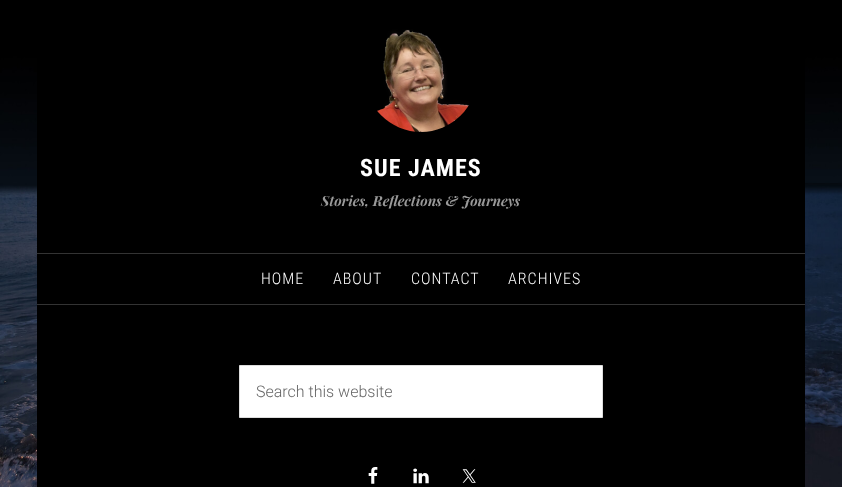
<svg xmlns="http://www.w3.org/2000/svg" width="842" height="487">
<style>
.a{font:bold 24px Roboto Condensed;letter-spacing:1px;fill:#fff}
.b{font:italic bold 14px Playfair Display;fill:#999}
.c{font:300 16px Roboto Condensed;letter-spacing:1px;fill:#fff}
.d{font:300 16px Roboto;fill:#666}
</style>
<rect width="100%" height="100%" fill="#fff"/>
<image href="1.png" x="0" y="0" width="842" height="487"/>
<path fill="#000" d="M37 0h768v487H37z"/>
<image href="2.png" x="377" y="29" width="92" height="103"/>
<path fill="#333" d="M37 253h768v1H37z"/>
<path fill="#333" d="M37 304h768v1H37z"/>
<path fill="#fff" stroke="#ddd" d="M239.5 365.5h363v52H239.5z"/>
<image href="3.png" x="368" y="467" width="10" height="17"/>
<image href="4.png" x="413" y="468" width="16" height="16"/>
<image href="5.png" x="462" y="469" width="14" height="14"/>
<text class="a" x="360" y="176">SUE JAMES</text>
<text class="b" x="321" y="206">Stories, Reflections &amp; Journeys</text>
<text class="c" x="261" y="284">HOME</text>
<text class="c" x="333" y="284">ABOUT</text>
<text class="c" x="411" y="284">CONTACT</text>
<text class="c" x="508" y="284">ARCHIVES</text>
<text class="d" x="256" y="397">Search this website</text>
</svg>
